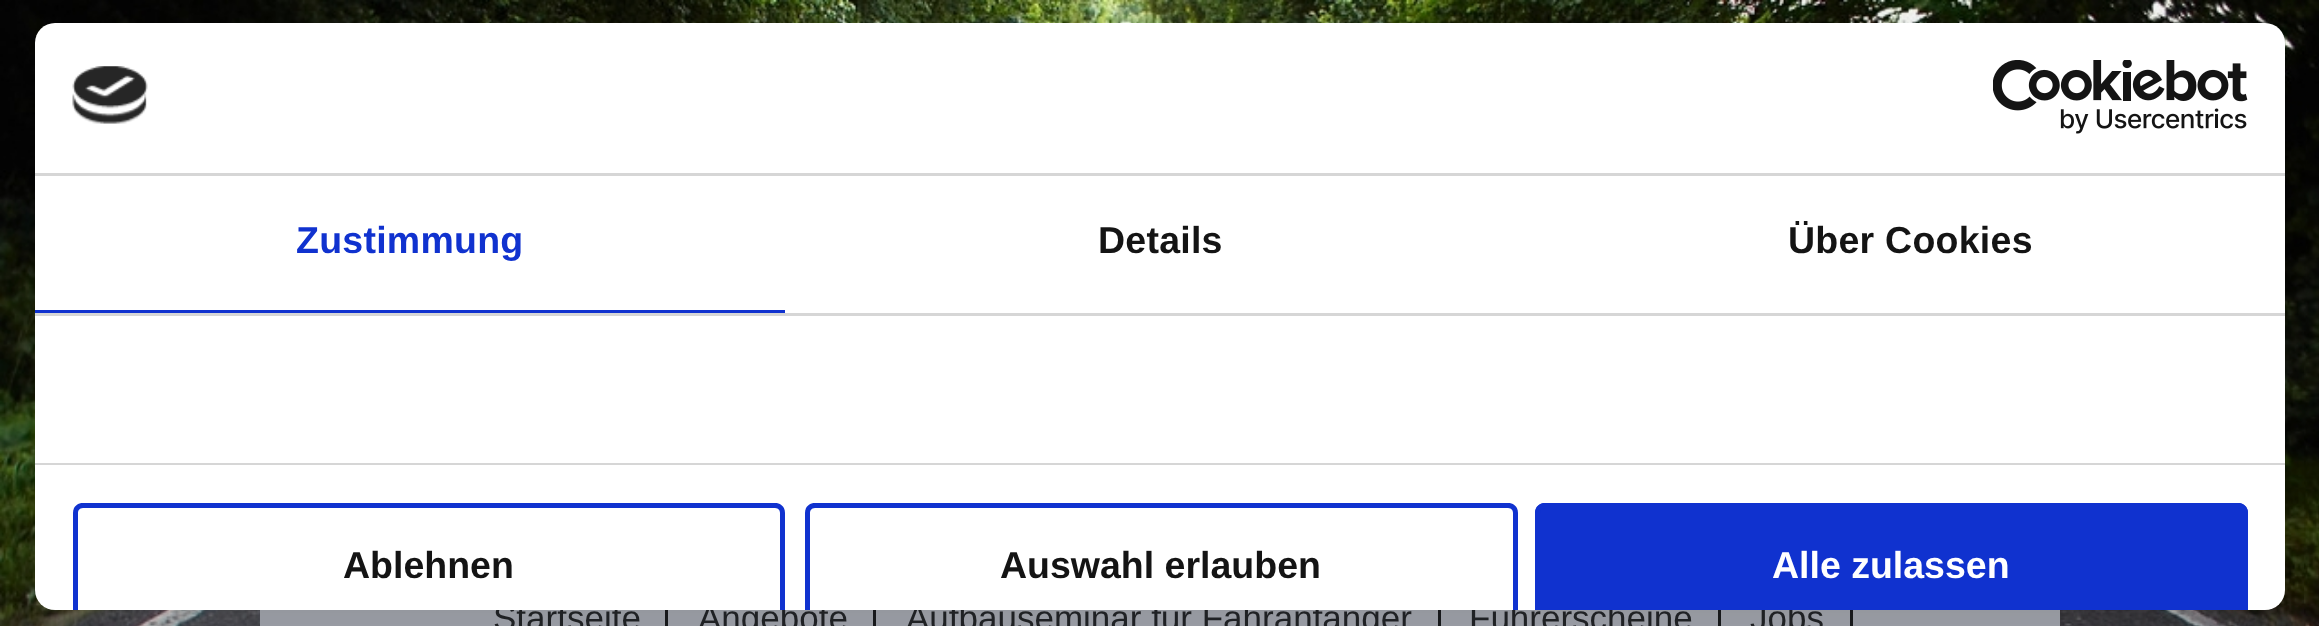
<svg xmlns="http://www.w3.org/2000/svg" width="2319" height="626">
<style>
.a{font:35px Liberation Sans;fill:#1f2124}
.b{font:bold 37.5px Liberation Sans;fill:#fff}
.c{font:bold 37.5px Liberation Sans;fill:#141414}
.d{font:bold 37.5px Liberation Sans;letter-spacing:0.25px;fill:#141414}
.e{font:bold 37.5px Liberation Sans;letter-spacing:0.25px;fill:#1032cf}
</style>
<defs>
<clipPath id="clip1"><path d="M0 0h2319v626h-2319zm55 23h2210c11 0 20 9 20 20v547c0 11-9 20-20 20h-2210c-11 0-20-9-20-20v-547c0-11 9-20 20-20z" clip-rule="evenodd"/></clipPath>
</defs>
<rect width="100%" height="100%" fill="#fff"/>
<image href="1.png" x="0" y="0" width="2319" height="626"/>
<path fill="#c7cbd5" d="M260 610h1800v16H260z"/>
<path fill="#1f2124" d="M665 610h3v16H665z"/>
<path fill="#1f2124" d="M873 610h3v16H873z"/>
<path fill="#1f2124" d="M1438 610h3v16H1438z"/>
<path fill="#1f2124" d="M1718 610h3v16H1718z"/>
<path fill="#1f2124" d="M1850 610h3v16H1850z"/>
<g clip-path="url(#clip1)">
<rect fill="#0000004d" filter="blur(85px)" x="35" y="103" width="2250" height="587" rx="20"/>
</g>
<text class="a" x="493" y="630">Startseite</text>
<text class="a" x="698" y="630">Angebote</text>
<text class="a" x="906" y="630">Aufbauseminar für Fahranfänger</text>
<text class="a" x="1469" y="630">Führerscheine</text>
<text class="a" x="1750" y="630">Jobs</text>
<rect fill="#fff" x="35" y="23" width="2250" height="587" rx="20"/>
<path fill="#1032cf" d="M1545 503h693c5.5 0 10 4.5 10 10v97h-713v-97c0-5.5 4.5-10 10-10z"/>
<path fill="#1032cf" d="M1545 503c-6 0-10 4-10 10v97h5v-97c0-3 2-5 5-5h693c3 0 5 2 5 5v97h5v-97c0-6-4-10-10-10z"/>
<text class="b" x="1772" y="578">Alle zulassen</text>
<path fill="#1032cf" d="M815 503c-6 0-10 4-10 10v97h5v-97c0-3 2-5 5-5h693c3 0 5 2 5 5v97h5v-97c0-6-4-10-10-10z"/>
<text class="c" x="1000" y="578">Auswahl erlauben</text>
<path fill="#1032cf" d="M83 503c-6 0-10 4-10 10v97h5v-97c0-3 2-5 5-5h692c3 0 5 2 5 5v97h5v-97c0-6-4-10-10-10z"/>
<text class="c" x="343" y="578">Ablehnen</text>
<path fill="#d6d6d6" d="M35 463h2250v2H35z"/>
<text class="d" x="1788" y="253">Über Cookies</text>
<text class="d" x="1098" y="253">Details</text>
<text class="e" x="296" y="253">Zustimmung</text>
<path fill="#1032cf" d="M35 310h750v3H35z"/>
<path fill="#d6d6d6" d="M35 313h2250v3H35z"/>
<image href="3.png" x="1993" y="60" width="255" height="74"/>
<image href="2.png" x="72" y="66" width="76" height="58"/>
<path fill="#d6d6d6" d="M35 173h2250v3H35z"/>
</svg>
